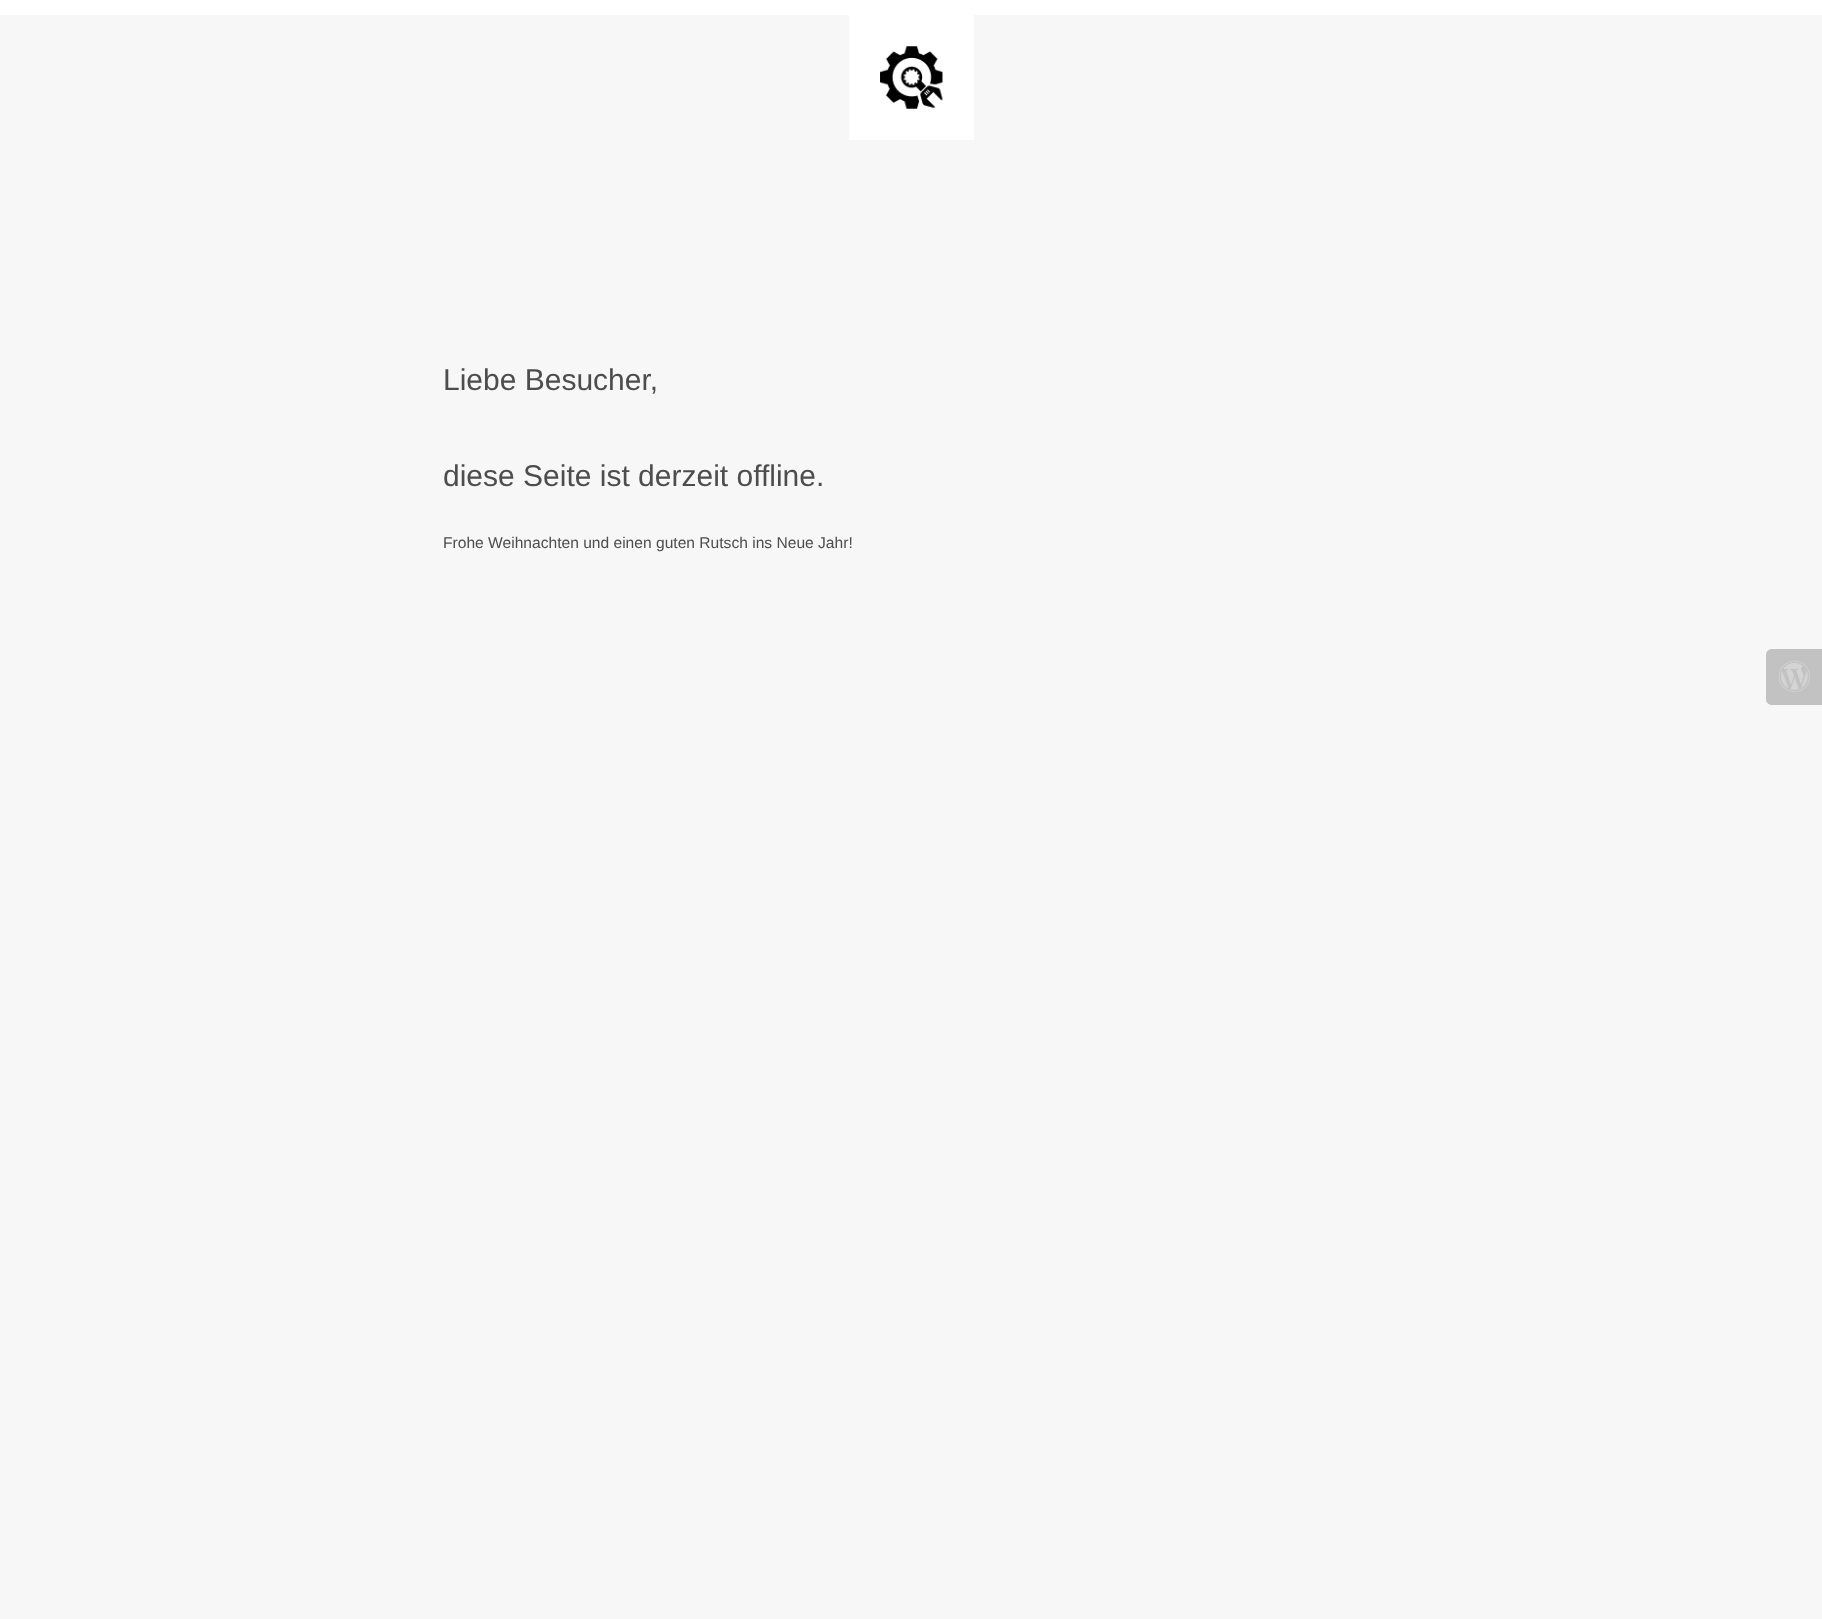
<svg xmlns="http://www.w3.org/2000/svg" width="1822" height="1619">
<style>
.a{font:30px Liberation Sans;fill:#4d4d4d}
.b{font:15.6px Liberation Sans;fill:#4d4d4d}
</style>
<rect width="100%" height="100%" fill="#f7f7f7"/>
<path fill="#fff" d="M0 0h1822v15H0z"/>
<path fill="#fff" d="M849 15h125v125H849z"/>
<image href="1.png" x="880" y="46" width="63" height="63"/>
<path fill="#c2c2c2" d="M1772 649h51v56h-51c-3.5 0-6-2.5-6-6v-44c0-3.5 2.5-6 6-6z"/>
<image href="2.png" x="1778" y="660" width="32" height="32"/>
<text class="a" x="443" y="390">Liebe Besucher,</text>
<text class="a" x="443" y="486">diese Seite ist derzeit offline.</text>
<text class="b" x="443" y="548">Frohe Weihnachten und einen guten Rutsch ins Neue Jahr!</text>
</svg>
